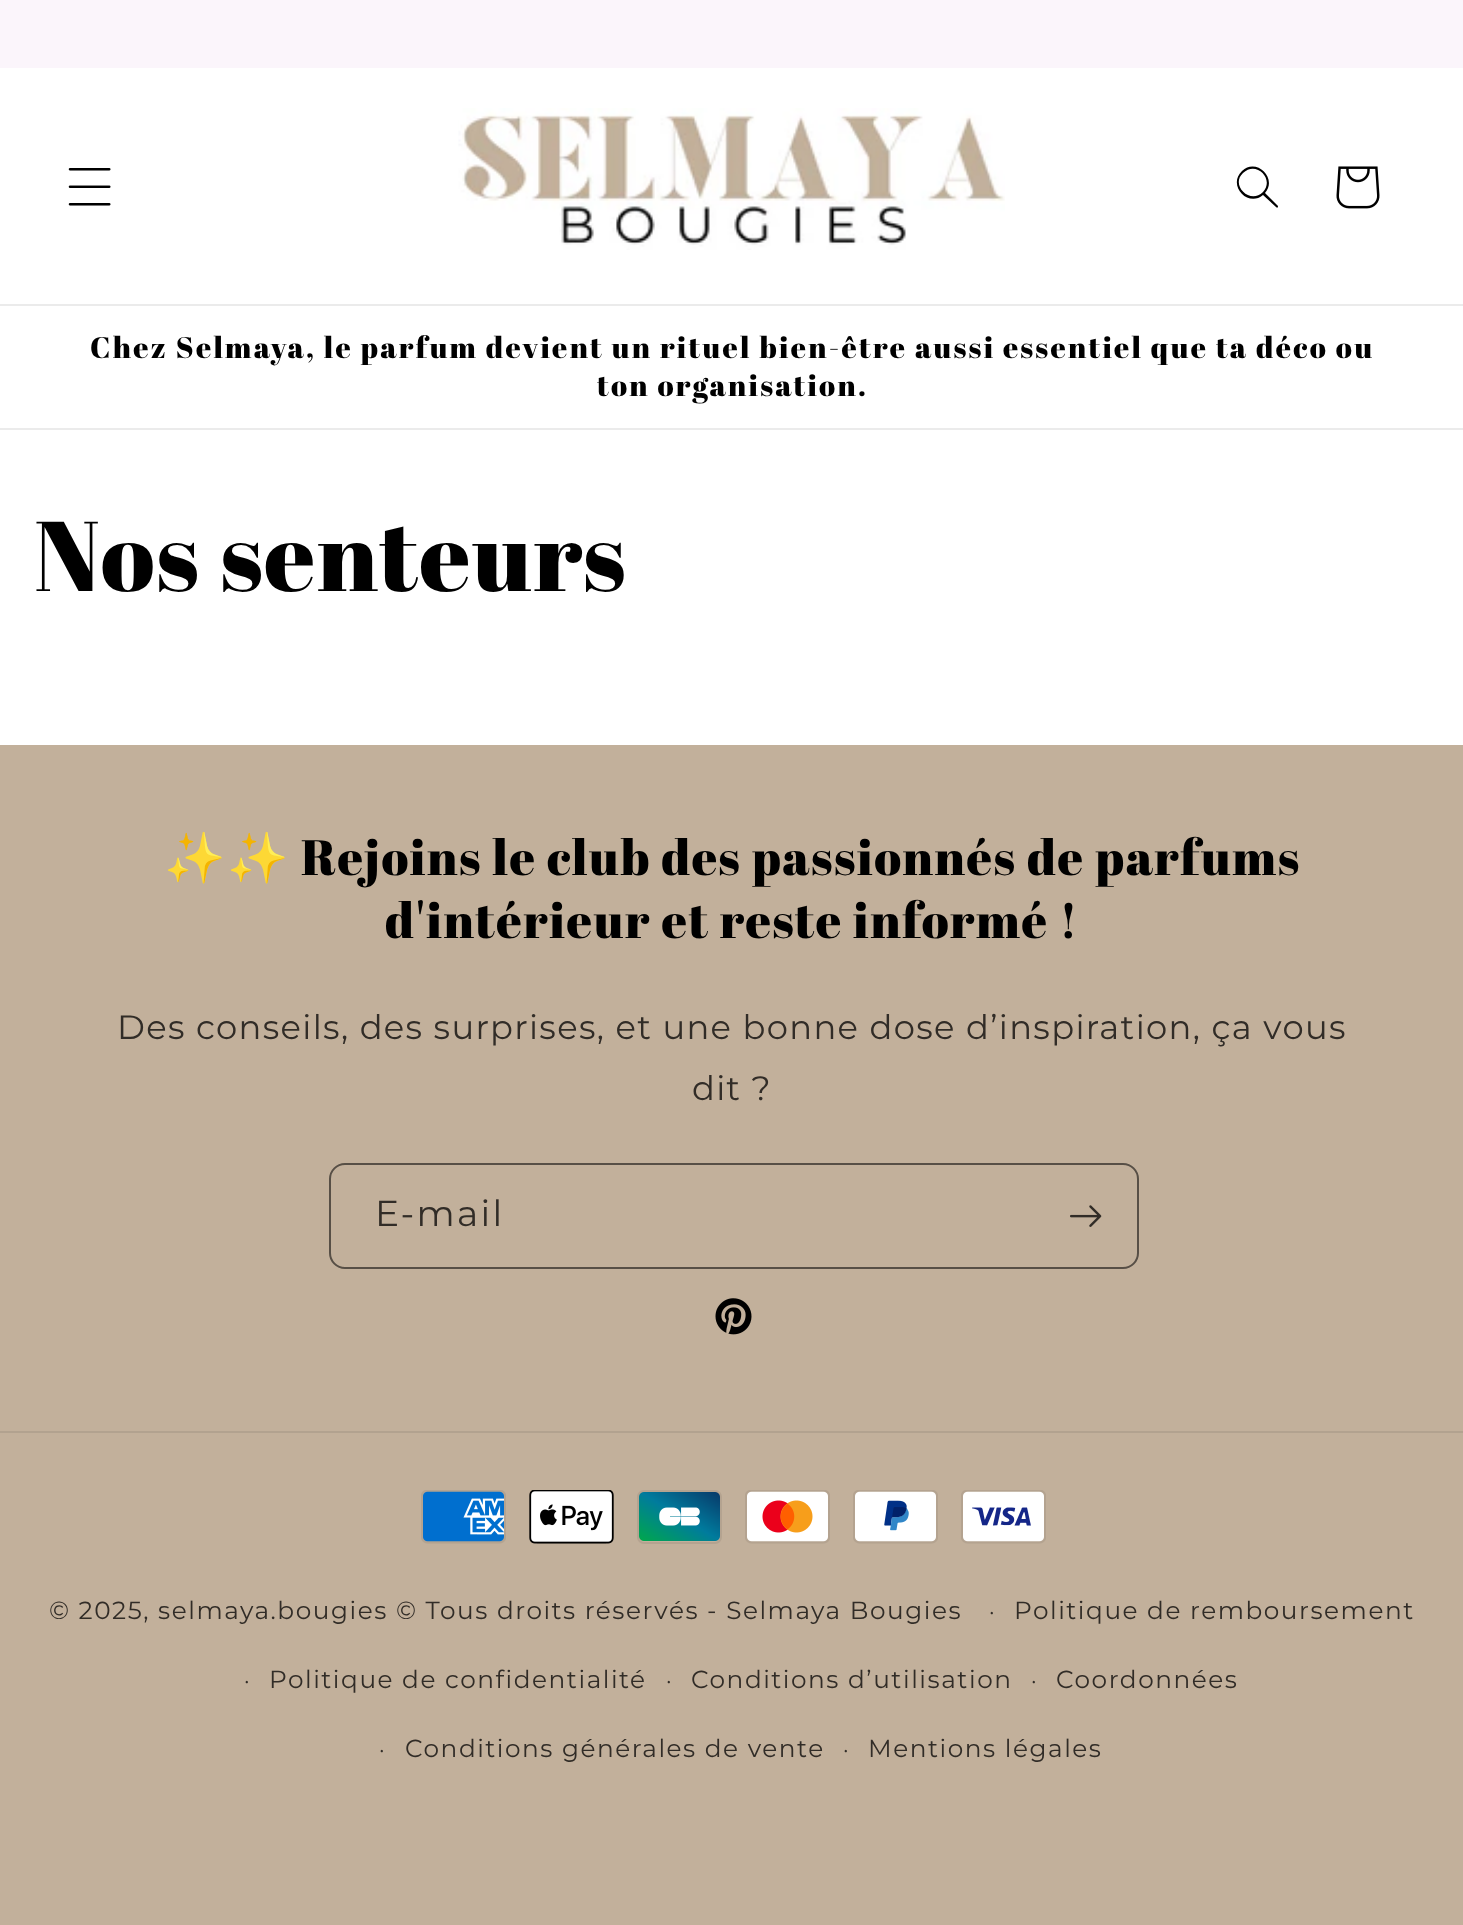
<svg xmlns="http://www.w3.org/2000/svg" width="1463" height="1925">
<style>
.a{font:29.7px Abril Fatface;letter-spacing:2.25px;fill:#000}
.b{font:99px Abril Fatface;letter-spacing:1.5px;fill:#000}
.c{font:49.5px Noto Color Emoji;letter-spacing:1.5px;fill:#000}
.d{font:49.5px Abril Fatface;letter-spacing:1.5px;fill:#000}
.e{font:33.75px Montserrat;letter-spacing:1.35px;fill:#312c27}
.f{font:36px Montserrat;letter-spacing:2.25px;fill:#312c27}
.g{font:24.75px Montserrat;letter-spacing:1.55px;fill:#312c27}
.h{font:22px Montserrat;letter-spacing:1.55px;fill:#312c27}
</style>
<rect width="100%" height="100%" fill="#fff"/>
<path fill="#fbf5fb" d="M0 0h1463v68H0z"/>
<path fill="#ebebeb" d="M0 304h1463v2H0z"/>
<image href="1.png" x="68" y="168" width="43" height="38"/>
<image href="2.png" x="458" y="108" width="547" height="142"/>
<path fill="#000" fill-rule="evenodd" d="M1263 192c-13 13-33-7-20-19c13-13 32 6 20 19m0 3c-15 13-36-10-21-24c14-14 36 7 23 22l13 13c0 2-1 2-2 1z"/>
<image href="3.png" x="1336" y="166" width="44" height="43"/>
<path fill="#ebebeb" d="M0 428h1463v2H0z"/>
<path fill="#c2b09b" d="M0 745h1463v1180H0z"/>
<rect fill="none" stroke="#574f46" stroke-width="2" x="330" y="1164" width="808" height="104" rx="15"/>
<image href="4.png" x="1070" y="1205" width="32" height="22"/>
<image href="5.png" x="715" y="1298" width="37" height="37"/>
<path fill="#b2a28f" d="M0 1431h1463v2H0z"/>
<image href="6.png" x="421" y="1490" width="85" height="54"/>
<image href="7.png" x="529" y="1490" width="85" height="54"/>
<image href="8.png" x="637" y="1490" width="85" height="54"/>
<image href="9.png" x="745" y="1490" width="85" height="54"/>
<image href="10.png" x="853" y="1490" width="85" height="54"/>
<image href="11.png" x="961" y="1490" width="85" height="54"/>
<text class="a" x="90" y="358">Chez Selmaya, le parfum devient un rituel bien-être aussi essentiel que ta déco ou</text>
<text class="a" x="597" y="396">ton organisation.</text>
<text class="b" x="34" y="591">Nos senteurs</text>
<text class="c" x="164" y="875">✨✨</text>
<text class="d" x="301" y="875">Rejoins le club des passionnés de parfums</text>
<text class="d" x="385" y="938">d'intérieur et reste informé !</text>
<text class="e" x="117" y="1039">Des conseils, des surprises, et une bonne dose d’inspiration, ça vous</text>
<text class="e" x="692" y="1100">dit ?</text>
<text class="f" x="375" y="1226">E-mail</text>
<text class="g" x="49" y="1619">© 2025, selmaya.bougies</text>
<text class="h" x="989" y="1619">·</text>
<text class="g" x="1014" y="1619">Politique de remboursement</text>
<text class="h" x="244" y="1688">·</text>
<text class="g" x="269" y="1688">Politique de confidentialité</text>
<text class="h" x="666" y="1688">·</text>
<text class="g" x="691" y="1688">Conditions d’utilisation</text>
<text class="h" x="1031" y="1688">·</text>
<text class="g" x="1056" y="1688">Coordonnées</text>
<text class="h" x="379" y="1757">·</text>
<text class="g" x="405" y="1757">Conditions générales de vente</text>
<text class="h" x="843" y="1757">·</text>
<text class="g" x="868" y="1757">Mentions légales</text>
<text class="g" x="396" y="1619">© Tous droits réservés - Selmaya Bougies</text>
</svg>
